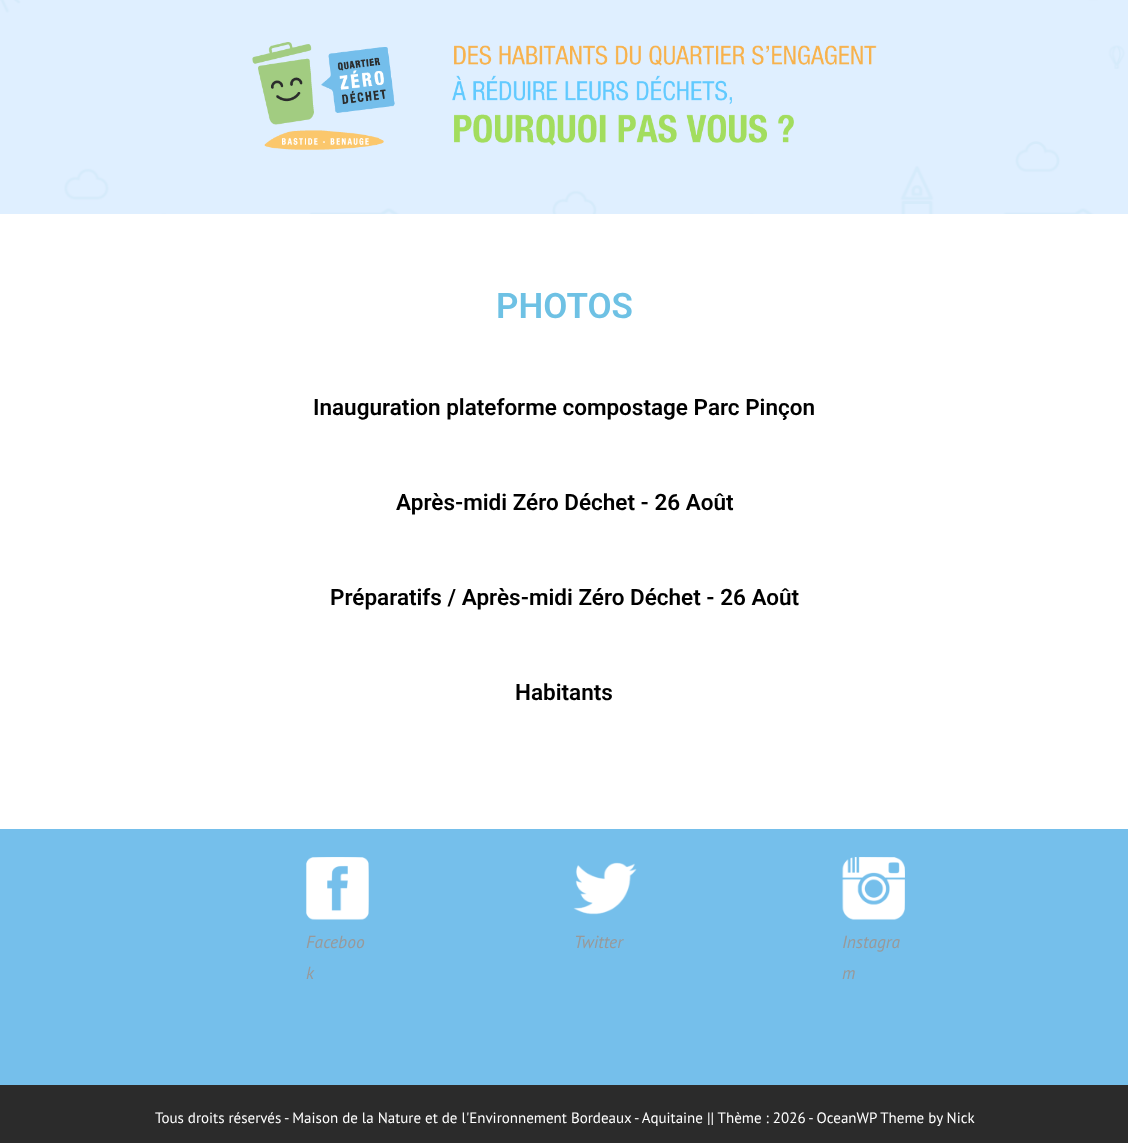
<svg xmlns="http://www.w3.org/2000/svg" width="1128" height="1143">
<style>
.a{font:600 35px Roboto;fill:#6ec1e4}
.b{font:600 22.5px Roboto;fill:#000}
.c{font:italic 17.5px PT Sans;fill:#999}
.d{font:15px PT Sans;fill:#fff}
</style>
<rect width="100%" height="100%" fill="#fff"/>
<image href="1.png" x="0" y="0" width="1128" height="214"/>
<image href="2.png" x="252" y="42" width="625" height="108"/>
<path fill="#75bfeb" d="M0 829h1128v256H0z"/>
<image href="3.png" x="306" y="857" width="63" height="63"/>
<image href="4.png" x="573" y="862" width="64" height="53"/>
<image href="5.png" x="842" y="857" width="63" height="63"/>
<path fill="#2b2b2b" d="M0 1085h1128v58H0z"/>
<text class="a" x="496" y="318">PHOTOS</text>
<text class="b" x="313" y="415">Inauguration plateforme compostage Parc Pinçon</text>
<text class="b" x="396" y="510">Après-midi Zéro Déchet - 26 Août</text>
<text class="b" x="330" y="605">Préparatifs / Après-midi Zéro Déchet - 26 Août</text>
<text class="b" x="515" y="700">Habitants</text>
<text class="c" x="306" y="948">Faceboo</text>
<text class="c" x="306" y="979">k</text>
<text class="c" x="574" y="948">Twitter</text>
<text class="c" x="842" y="948">Instagra</text>
<text class="c" x="842" y="979">m</text>
<text class="d" x="155" y="1123">Tous droits réservés - Maison de la Nature et de l'Environnement Bordeaux - Aquitaine || Thème : 2026 - OceanWP Theme by Nick</text>
</svg>
